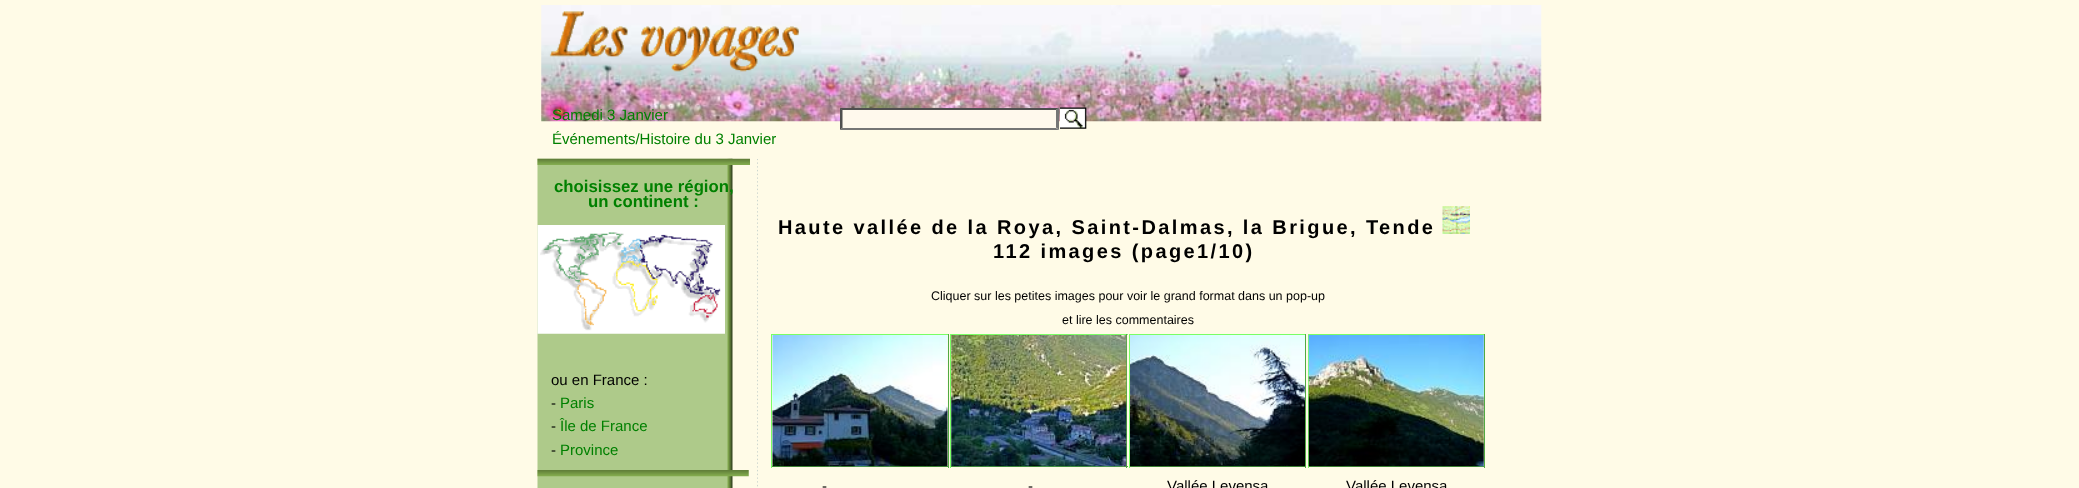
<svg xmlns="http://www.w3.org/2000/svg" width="2079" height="488">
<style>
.a{font:15px Liberation Sans;fill:#008000}
.b{font:bold 16.75px Liberation Sans;fill:#008000}
.c{font:15px Liberation Sans;fill:#000}
.d{font:bold 20px Liberation Sans;letter-spacing:2.4px;fill:#000}
.e{font:12.5px Liberation Sans;fill:#000}
</style>
<rect width="100%" height="100%" fill="#fffbe7"/>
<image href="1.png" x="541" y="5" width="1001" height="117"/>
<image href="2.png" x="549" y="11" width="250" height="61"/>
<path fill="#fff9ed" d="M840 108h219v22H840z"/>
<path fill="#4f4f4f" d="M840 108h219l-3 2h-214z"/>
<path fill="#767676" d="M1059 107.5v22.5l-3-2.5v-17.5z"/>
<path fill="#767676" d="M1059 130h-219l2-2h214z"/>
<path fill="#4f4f4f" d="M840 130v-22.5l2.5 2.5v17.5z"/>
<image href="3.png" x="1060" y="107" width="27" height="22"/>
<image href="4.png" x="537" y="158" width="196" height="330"/>
<image href="5.png" x="537" y="158" width="213" height="7"/>
<image href="6.png" x="537" y="225" width="188" height="109"/>
<image href="7.png" x="537" y="470" width="212" height="7"/>
<image href="8.png" x="757" y="159" width="1" height="328"/>
<image href="9.png" x="1442" y="206" width="28" height="28"/>
<path fill="#79ff65" d="M771 334h178v1H771z"/>
<path fill="#51aa43" d="M948 334h1v134H948z"/>
<path fill="#51aa43" d="M771 466h178v1H771z"/>
<path fill="#79ff65" d="M771 334h1v134H771z"/>
<image href="10.png" x="772" y="335" width="176" height="132"/>
<path fill="#79ff65" d="M950 334h178v1H950z"/>
<path fill="#51aa43" d="M1126 334h1v134H1126z"/>
<path fill="#51aa43" d="M950 466h178v1H950z"/>
<path fill="#79ff65" d="M950 334h1v134H950z"/>
<image href="11.png" x="951" y="335" width="176" height="132"/>
<path fill="#79ff65" d="M1129 334h177v1H1129z"/>
<path fill="#51aa43" d="M1305 334h1v134H1305z"/>
<path fill="#51aa43" d="M1129 466h177v1H1129z"/>
<path fill="#79ff65" d="M1129 334h1v134H1129z"/>
<image href="12.png" x="1130" y="335" width="175" height="132"/>
<path fill="#79ff65" d="M1308 334h177v1H1308z"/>
<path fill="#51aa43" d="M1484 334h1v134H1484z"/>
<path fill="#51aa43" d="M1308 466h177v1H1308z"/>
<path fill="#79ff65" d="M1308 334h1v134H1308z"/>
<image href="13.png" x="1308" y="335" width="176" height="132"/>
<text class="a" x="552" y="120">Samedi 3 Janvier</text>
<text class="a" x="552" y="144">Événements/Histoire du 3 Janvier</text>
<text class="b" x="554" y="192">choisissez une région,</text>
<text class="b" x="588" y="207">un continent :</text>
<text class="c" x="551" y="385">ou en France :</text>
<text class="c" x="551" y="408">-</text>
<text class="a" x="560" y="408">Paris</text>
<text class="c" x="551" y="431">-</text>
<text class="a" x="560" y="431">Île de France</text>
<text class="c" x="551" y="455">-</text>
<text class="a" x="560" y="455">Province</text>
<text class="d" x="778" y="234">Haute vallée de la Roya, Saint-Dalmas, la Brigue, Tende</text>
<text class="d" x="993" y="258">112 images (page1/10)</text>
<text class="e" x="931" y="300">Cliquer sur les petites images pour voir le grand format dans un pop-up</text>
<text class="e" x="1062" y="324">et lire les commentaires</text>
<text class="c" x="822" y="491">-</text>
<text class="c" x="1028" y="491">-</text>
<text class="c" x="1167" y="491">Vallée Levensa</text>
<text class="c" x="1346" y="491">Vallée Levensa</text>
</svg>
